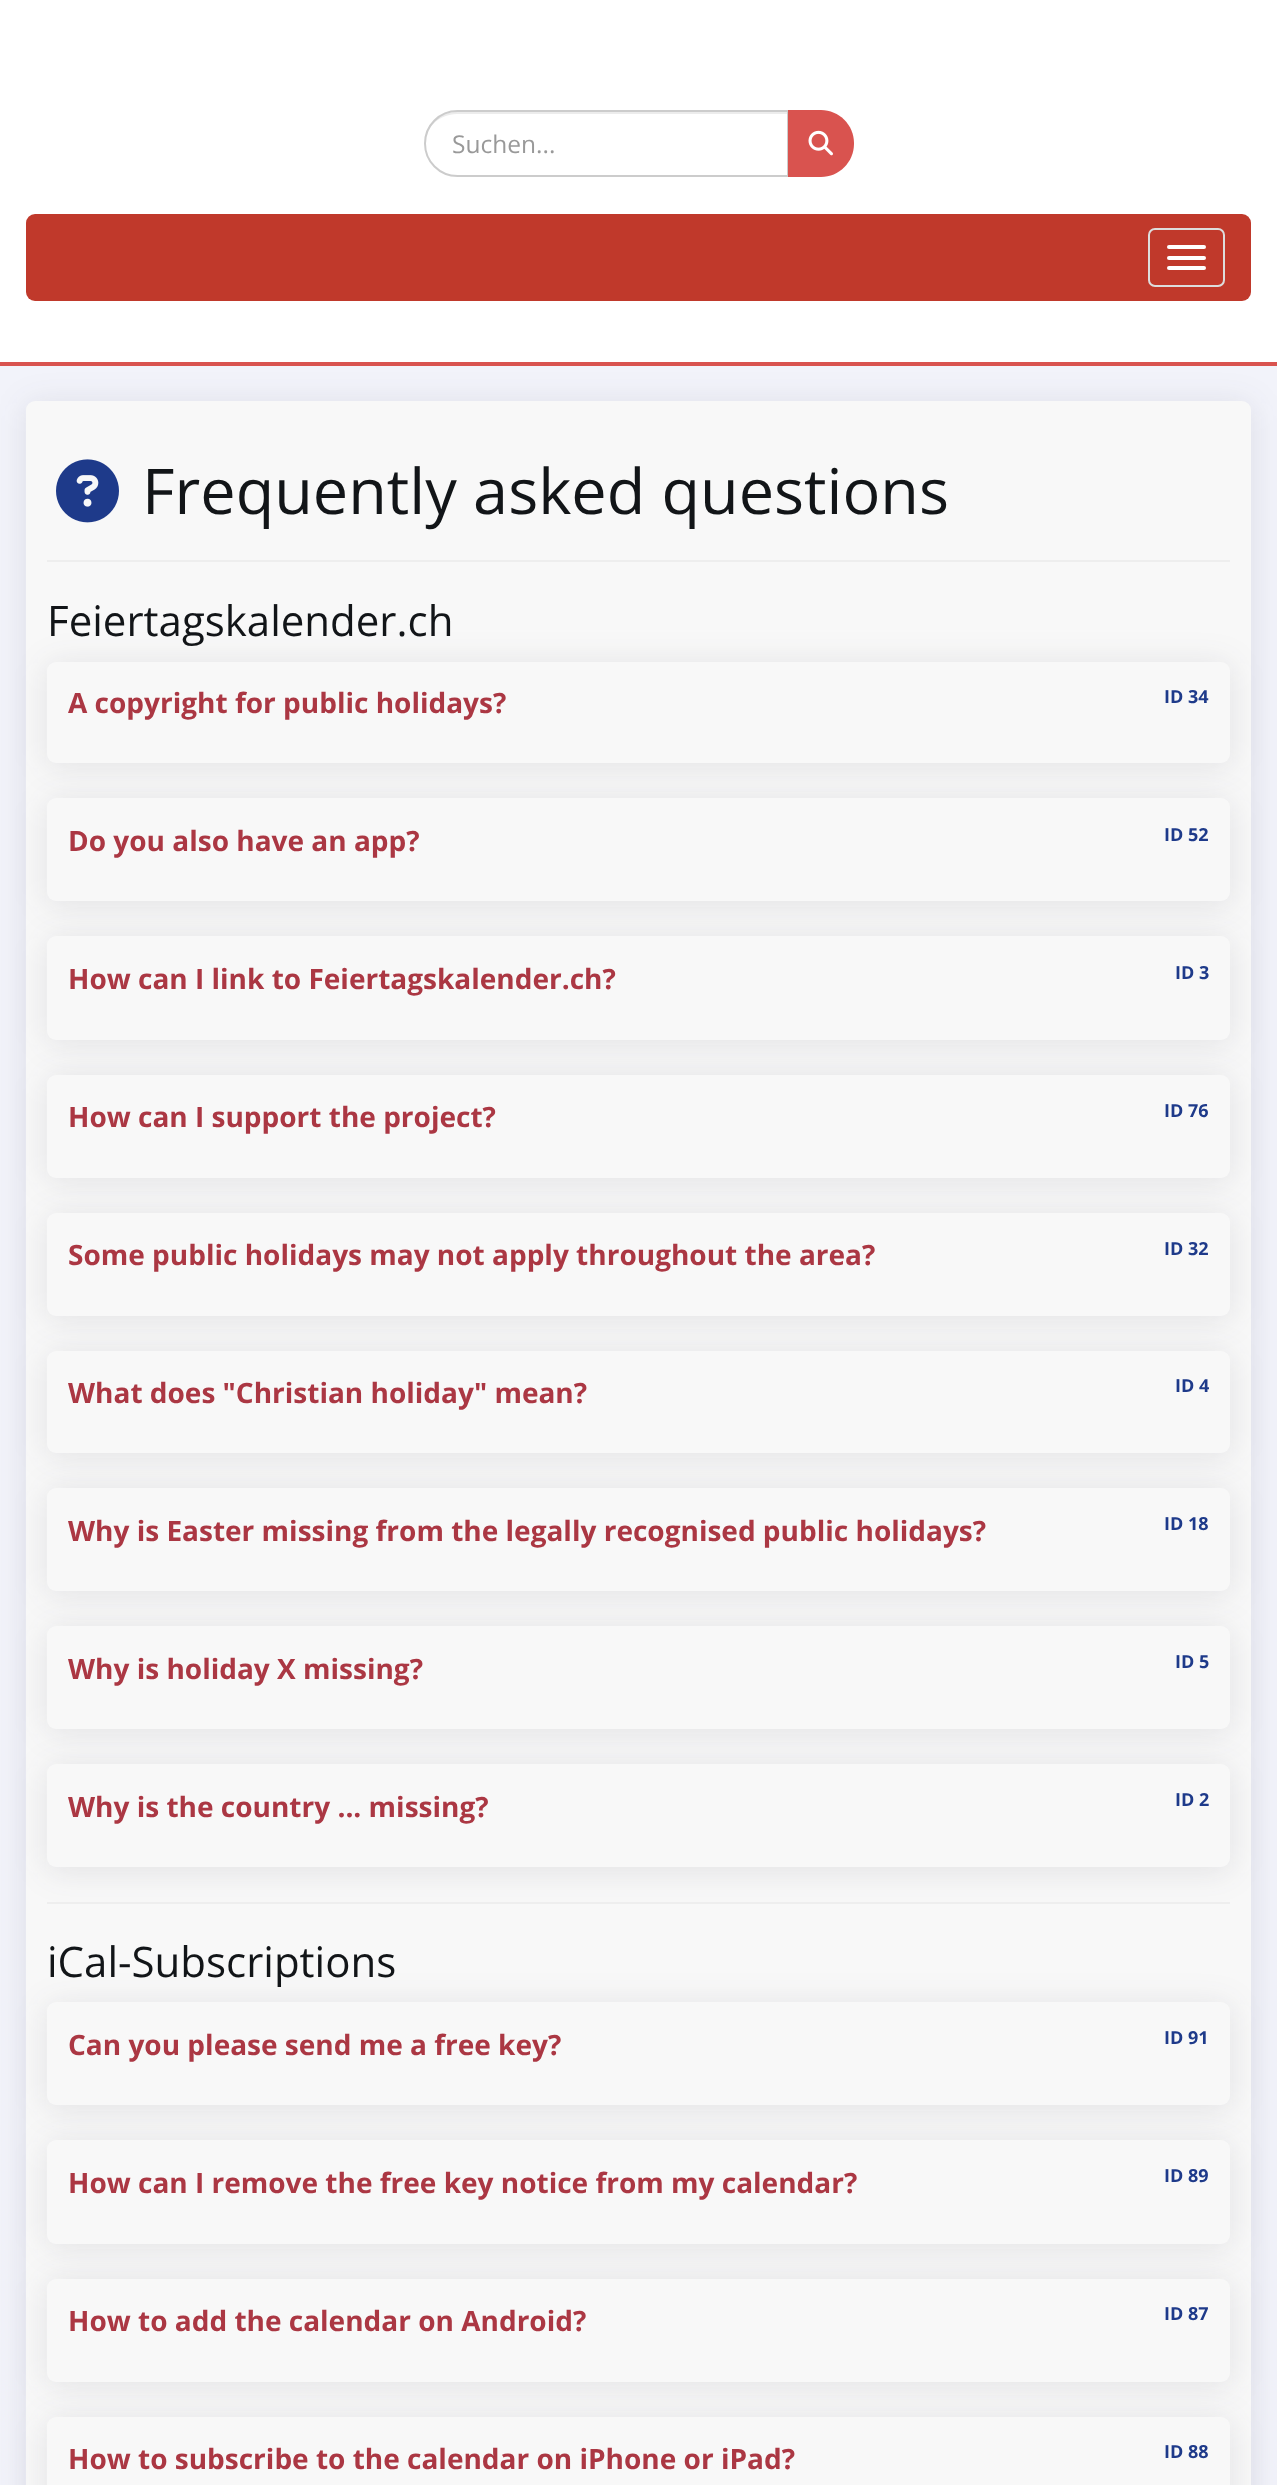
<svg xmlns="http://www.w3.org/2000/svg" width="1277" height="2485">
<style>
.a{font:24.5px Open Sans;fill:#999}
.b{font:63px Open Sans;fill:#121518}
.c{font:42px Open Sans;fill:#121518}
.d{font:bold 28px Open Sans;fill:#ab3743}
.e{font:bold 18px Open Sans;fill:#1e3a8a}
</style>
<rect width="100%" height="100%" fill="#f2f3fa"/>
<path fill="#fff" d="M0 0h1277v362H0z"/>
<path fill="#d9534f" d="M0 362h1277v4H0z"/>
<path fill="#ececec" d="M457 114h331v-2h-332c-17 0-31 14-31 32c0-16 14-30 32-30z"/>
<path fill="none" stroke="#ccc" stroke-width="2" d="M457.5 111h330.5v65h-330.5c-18 0-32.5-14.5-32.5-32.5c0-18 14.5-32.5 32.5-32.5z"/>
<path fill="#d9534f" d="M788 110h33c18 0 33 15 33 33v1c0 18-15 33-33 33h-33z"/>
<image href="1.png" x="808" y="130" width="25" height="26"/>
<rect fill="#c0392b" x="26" y="214" width="1225" height="87" rx="9"/>
<rect fill="none" stroke="#ddd" stroke-width="2" x="1149" y="229" width="75" height="57" rx="6"/>
<rect fill="#fff" x="1167" y="245" width="39" height="4" rx="2"/>
<rect fill="#fff" x="1167" y="256" width="39" height="4" rx="2"/>
<rect fill="#fff" x="1167" y="266" width="39" height="4" rx="2"/>
<rect fill="#3135481a" filter="blur(16px)" x="25" y="403" width="1228" height="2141" rx="11"/>
<rect fill="#f8f8f8" x="26" y="401" width="1225" height="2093" rx="9"/>
<image href="2.png" x="56" y="459" width="63" height="64"/>
<path fill="#eee" d="M47 560h1183v2H47z"/>
<rect fill="#3135481a" filter="blur(16px)" x="46" y="663" width="1186" height="105" rx="11"/>
<rect fill="#f8f8f8" x="47" y="662" width="1183" height="101" rx="9"/>
<rect fill="#3135481a" filter="blur(16px)" x="46" y="800" width="1186" height="107" rx="11"/>
<rect fill="#f8f8f8" x="47" y="798" width="1183" height="103" rx="9"/>
<rect fill="#3135481a" filter="blur(16px)" x="46" y="938" width="1186" height="107" rx="11"/>
<rect fill="#f8f8f8" x="47" y="936" width="1183" height="104" rx="9"/>
<rect fill="#3135481a" filter="blur(16px)" x="46" y="1076" width="1186" height="107" rx="11"/>
<rect fill="#f8f8f8" x="47" y="1075" width="1183" height="103" rx="9"/>
<rect fill="#3135481a" filter="blur(16px)" x="46" y="1215" width="1186" height="106" rx="11"/>
<rect fill="#f8f8f8" x="47" y="1213" width="1183" height="103" rx="9"/>
<rect fill="#3135481a" filter="blur(16px)" x="46" y="1353" width="1186" height="105" rx="11"/>
<rect fill="#f8f8f8" x="47" y="1351" width="1183" height="102" rx="9"/>
<rect fill="#3135481a" filter="blur(16px)" x="46" y="1489" width="1186" height="107" rx="11"/>
<rect fill="#f8f8f8" x="47" y="1488" width="1183" height="103" rx="9"/>
<rect fill="#3135481a" filter="blur(16px)" x="46" y="1628" width="1186" height="106" rx="11"/>
<rect fill="#f8f8f8" x="47" y="1626" width="1183" height="103" rx="9"/>
<rect fill="#3135481a" filter="blur(16px)" x="46" y="1766" width="1186" height="107" rx="11"/>
<rect fill="#f8f8f8" x="47" y="1764" width="1183" height="103" rx="9"/>
<path fill="#eee" d="M47 1902h1183v2H47z"/>
<rect fill="#3135481a" filter="blur(16px)" x="46" y="2004" width="1186" height="107" rx="11"/>
<rect fill="#f8f8f8" x="47" y="2002" width="1183" height="103" rx="9"/>
<rect fill="#3135481a" filter="blur(16px)" x="46" y="2142" width="1186" height="107" rx="11"/>
<rect fill="#f8f8f8" x="47" y="2140" width="1183" height="104" rx="9"/>
<rect fill="#3135481a" filter="blur(16px)" x="46" y="2280" width="1186" height="107" rx="11"/>
<rect fill="#f8f8f8" x="47" y="2279" width="1183" height="103" rx="9"/>
<rect fill="#3135481a" filter="blur(16px)" x="46" y="2419" width="1186" height="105" rx="11"/>
<rect fill="#f8f8f8" x="47" y="2417" width="1183" height="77" rx="9"/>
<text class="a" x="452" y="153">Suchen...</text>
<text class="b" x="142" y="514">Frequently asked questions</text>
<text class="c" x="47" y="636">Feiertagskalender.ch</text>
<text class="d" x="68" y="713">A copyright for public holidays?</text>
<text class="e" x="1164" y="703">ID 34</text>
<text class="d" x="68" y="851">Do you also have an app?</text>
<text class="e" x="1164" y="841">ID 52</text>
<text class="d" x="68" y="989">How can I link to Feiertagskalender.ch?</text>
<text class="e" x="1175" y="979">ID 3</text>
<text class="d" x="68" y="1127">How can I support the project?</text>
<text class="e" x="1164" y="1117">ID 76</text>
<text class="d" x="68" y="1265">Some public holidays may not apply throughout the area?</text>
<text class="e" x="1164" y="1255">ID 32</text>
<text class="d" x="68" y="1403">What does "Christian holiday" mean?</text>
<text class="e" x="1175" y="1392">ID 4</text>
<text class="d" x="68" y="1541">Why is Easter missing from the legally recognised public holidays?</text>
<text class="e" x="1164" y="1530">ID 18</text>
<text class="d" x="68" y="1679">Why is holiday X missing?</text>
<text class="e" x="1175" y="1668">ID 5</text>
<text class="d" x="68" y="1817">Why is the country ... missing?</text>
<text class="e" x="1175" y="1806">ID 2</text>
<text class="c" x="47" y="1977">iCal-Subscriptions</text>
<text class="d" x="68" y="2055">Can you please send me a free key?</text>
<text class="e" x="1164" y="2044">ID 91</text>
<text class="d" x="68" y="2193">How can I remove the free key notice from my calendar?</text>
<text class="e" x="1164" y="2182">ID 89</text>
<text class="d" x="68" y="2331">How to add the calendar on Android?</text>
<text class="e" x="1164" y="2320">ID 87</text>
<text class="d" x="68" y="2469">How to subscribe to the calendar on iPhone or iPad?</text>
<text class="e" x="1164" y="2458">ID 88</text>
</svg>
